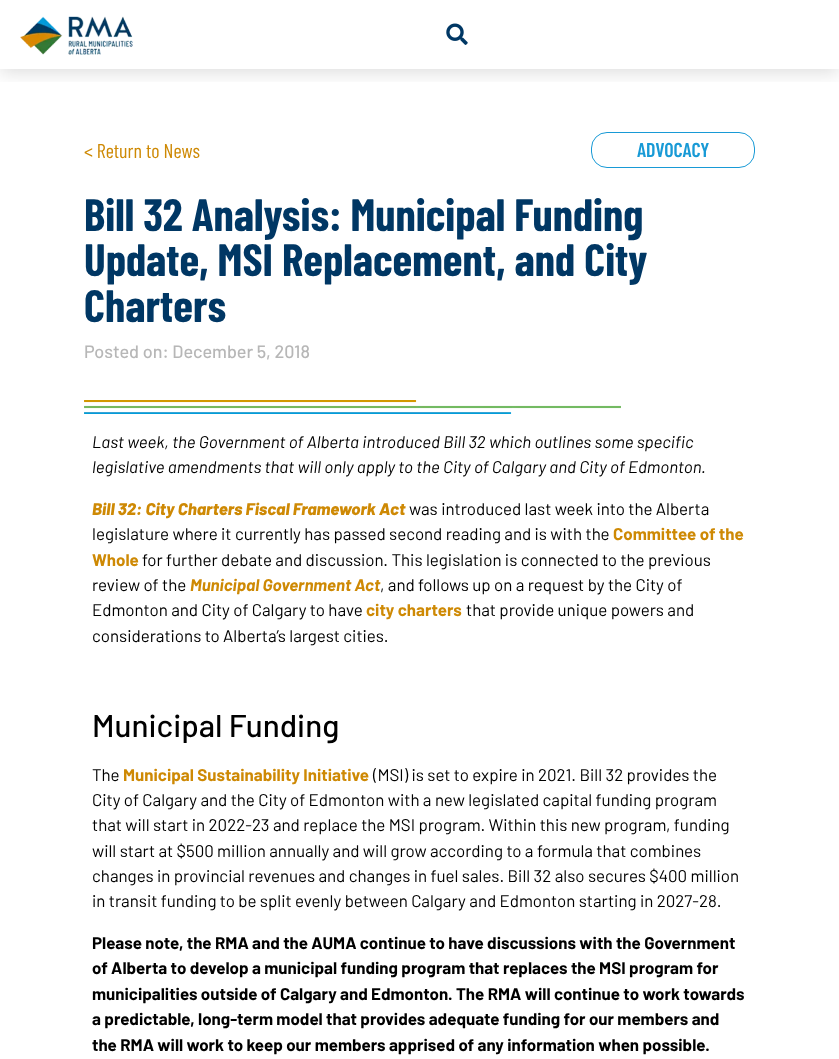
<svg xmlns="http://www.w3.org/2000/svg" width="839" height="1059">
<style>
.a{font:20px Barlow Condensed;fill:#ce8904}
.b{font:600 20px Barlow Condensed;fill:#189ad6}
.c{font:bold 45.25px Barlow Condensed;fill:#003764}
.d{font:500 18px Barlow;fill:#b7b7b7}
.e{font:italic 16.9px Barlow;fill:#000}
.f{font:italic 800 16.9px Barlow;fill:#ce8904}
.g{font:16.9px Barlow;fill:#000}
.h{font:bold 16.9px Barlow;fill:#ce8904}
.i{font:italic bold 16.9px Barlow;fill:#ce8904}
.j{font:500 31.5px Barlow;fill:#000}
.k{font:bold 16.9px Barlow;fill:#000}
</style>
<defs>
<clipPath id="clip1"><path d="M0 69h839v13H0z"/></clipPath>
</defs>
<rect width="100%" height="100%" fill="#fff"/>
<g clip-path="url(#clip1)">
<path fill="#00000021" filter="blur(9px)" d="M0 4h839v69H0z"/>
</g>
<image href="1.png" x="20" y="16" width="113" height="39"/>
<image href="2.png" x="446" y="23" width="22" height="22"/>
<rect fill="none" stroke="#189ad6" x="591.5" y="132.5" width="163" height="35" rx="15.5"/>
<image href="3.png" x="84" y="400" width="537" height="14"/>
<text class="a" x="84" y="158">&lt; Return to News</text>
<text class="b" x="637" y="157">ADVOCACY</text>
<text class="c" x="84" y="231">Bill 32 Analysis: Municipal Funding</text>
<text class="c" x="84" y="276">Update, MSI Replacement, and City</text>
<text class="c" x="84" y="322">Charters</text>
<text class="d" x="84" y="358">Posted on: December 5, 2018</text>
<text class="e" x="92" y="448">Last week, the Government of Alberta introduced Bill 32 which outlines some specific</text>
<text class="e" x="92" y="473">legislative amendments that will only apply to the City of Calgary and City of Edmonton.</text>
<text class="f" x="92" y="515">Bill 32: City Charters Fiscal Framework Act</text>
<text class="g" x="409" y="515">was introduced last week into the Alberta</text>
<text class="g" x="92" y="540">legislature where it currently has passed second reading and is with the</text>
<text class="h" x="613" y="540">Committee of the</text>
<text class="h" x="92" y="566">Whole</text>
<text class="g" x="142" y="566">for further debate and discussion. This legislation is connected to the previous</text>
<text class="g" x="92" y="591">review of the</text>
<text class="i" x="190" y="591">Municipal Government Act</text>
<text class="g" x="380" y="591">, and follows up on a request by the City of</text>
<text class="g" x="92" y="616">Edmonton and City of Calgary to have</text>
<text class="h" x="366" y="616">city charters</text>
<text class="g" x="466" y="616">that provide unique powers and</text>
<text class="g" x="92" y="642">considerations to Alberta’s largest cities.</text>
<text class="j" x="92" y="737">Municipal Funding</text>
<text class="g" x="92" y="781">The</text>
<text class="h" x="123" y="781">Municipal Sustainability Initiative</text>
<text class="g" x="373" y="781">(MSI) is set to expire in 2021. Bill 32 provides the</text>
<text class="g" x="92" y="806">City of Calgary and the City of Edmonton with a new legislated capital funding program</text>
<text class="g" x="92" y="831">that will start in 2022-23 and replace the MSI program. Within this new program, funding</text>
<text class="g" x="92" y="857">will start at $500 million annually and will grow according to a formula that combines</text>
<text class="g" x="92" y="882">changes in provincial revenues and changes in fuel sales. Bill 32 also secures $400 million</text>
<text class="g" x="92" y="907">in transit funding to be split evenly between Calgary and Edmonton starting in 2027-28.</text>
<text class="k" x="92" y="949">Please note, the RMA and the AUMA continue to have discussions with the Government</text>
<text class="k" x="92" y="974">of Alberta to develop a municipal funding program that replaces the MSI program for</text>
<text class="k" x="92" y="1000">municipalities outside of Calgary and Edmonton. The RMA will continue to work towards</text>
<text class="k" x="92" y="1025">a predictable, long-term model that provides adequate funding for our members and</text>
<text class="k" x="92" y="1051">the RMA will work to keep our members apprised of any information when possible.</text>
</svg>
